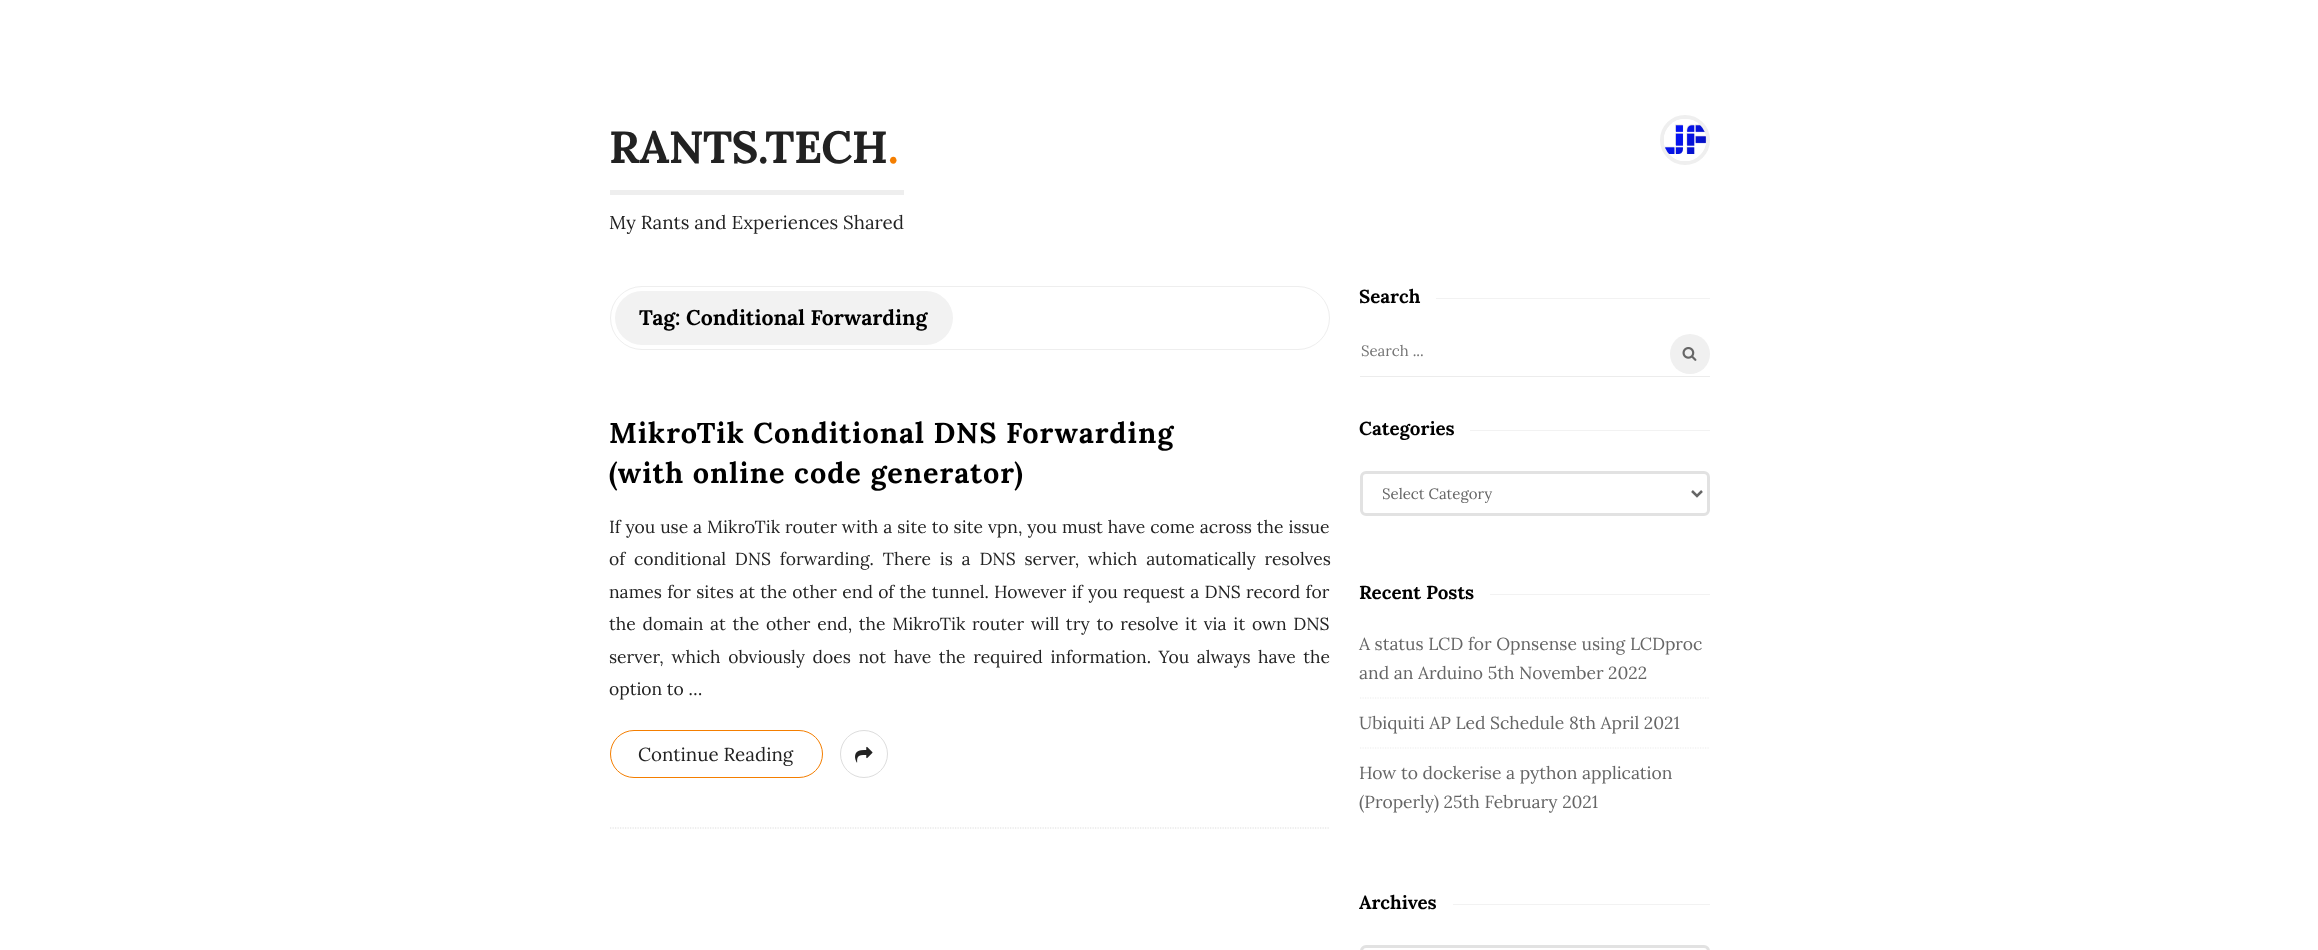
<svg xmlns="http://www.w3.org/2000/svg" width="2318" height="950">
<style>
.a{font:bold 45px Lora;letter-spacing:-0.6px;fill:#222}
.b{font:bold 45px Lora;letter-spacing:-0.6px;fill:#f47e00}
.c{font:18.75px Lora;fill:#222}
.d{font:bold 21.25px Lora;fill:#000}
.e{font:bold 28.75px Lora;letter-spacing:1px;fill:#000}
.f{font:17.5px Lora;fill:#222}
.g{font:bold 18.75px Lora;fill:#000}
.h{font:15px Lora;fill:#757575}
.i{font:15px Lora;fill:#666}
.j{font:17.5px Lora;fill:#666}
</style>
<defs>
<clipPath id="clip1"><path d="M1383 484h290v21H1383z"/></clipPath>
</defs>
<rect width="100%" height="100%" fill="#fff"/>
<path fill="#eee" d="M610 190h294v5H610z"/>
<circle fill="none" stroke="#efefef" stroke-width="4" cx="1685" cy="140" r="23"/>
<image href="1.png" x="1664" y="119" width="43" height="42"/>
<rect fill="none" stroke="#eee" x="610.5" y="286.5" width="719" height="63" rx="31.5"/>
<rect fill="#f2f2f2" x="615" y="291" width="338" height="54" rx="27"/>
<path fill="none" stroke="#ddd" stroke-width="1.2" stroke-dasharray="1.25 1.25" d="M610 828h720"/>
<rect fill="none" stroke="#f47e00" x="610.5" y="730.5" width="212" height="47" rx="23.5"/>
<circle fill="none" stroke="#ddd" cx="864" cy="754" r="23.5"/>
<image href="2.png" x="855" y="746" width="18" height="17"/>
<path fill="#f2f2f2" d="M1436 298h274v1H1436z"/>
<path fill="#ececec" d="M1360 376h350v1H1360z"/>
<circle fill="#f0f0f0" cx="1690" cy="354" r="20"/>
<image href="3.png" x="1682" y="347" width="15" height="14"/>
<path fill="#f2f2f2" d="M1470 430h240v1H1470z"/>
<rect fill="none" stroke="#e2e2e2" stroke-width="3" x="1361.5" y="472.5" width="347" height="42" rx="4.5"/>
<path fill="none" stroke="#666" stroke-width="2.5" d="M1692 491l5 5l5-5"/>
<path fill="#f2f2f2" d="M1490 594h220v1H1490z"/>
<path fill="none" stroke="#ececec" stroke-width="1.2" stroke-dasharray="1.25 1.25" d="M1360 698h350"/>
<path fill="none" stroke="#ececec" stroke-width="1.2" stroke-dasharray="1.25 1.25" d="M1360 748h350"/>
<path fill="#f2f2f2" d="M1453 904h257v1H1453z"/>
<rect fill="none" stroke="#e2e2e2" stroke-width="3" x="1361.5" y="946.5" width="347" height="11" rx="4.5"/>
<text class="a" x="609" y="163">RANTS.TECH</text>
<text class="b" x="888" y="163">.</text>
<text class="c" x="609" y="229">My Rants and Experiences Shared</text>
<text class="d" x="639" y="325">Tag: Conditional Forwarding</text>
<text class="e" x="609" y="443">MikroTik Conditional DNS Forwarding</text>
<text class="e" x="609" y="483">(with online code generator)</text>
<text class="f" x="609" y="533" word-spacing="0.3">If you use a MikroTik router with a site to site vpn, you must have come across the issue</text>
<text class="f" x="609" y="565" word-spacing="4.25">of conditional DNS forwarding. There is a DNS server, which automatically resolves</text>
<text class="f" x="609" y="598" word-spacing="0.75">names for sites at the other end of the tunnel. However if you request a DNS record for</text>
<text class="f" x="609" y="630" word-spacing="2.1">the domain at the other end, the MikroTik router will try to resolve it via it own DNS</text>
<text class="f" x="609" y="663" word-spacing="3">server, which obviously does not have the required information. You always have the</text>
<text class="f" x="609" y="695">option to …</text>
<text class="c" x="638" y="761">Continue Reading</text>
<text class="g" x="1359" y="303">Search</text>
<text class="h" x="1361" y="356">Search ...</text>
<text class="g" x="1359" y="435">Categories</text>
<g clip-path="url(#clip1)">
<text class="i" x="1382" y="499">Select Category</text>
</g>
<text class="g" x="1359" y="599">Recent Posts</text>
<text class="j" x="1359" y="650">A status LCD for Opnsense using LCDproc</text>
<text class="j" x="1359" y="679">and an Arduino 5th November 2022</text>
<text class="j" x="1359" y="729">Ubiquiti AP Led Schedule 8th April 2021</text>
<text class="j" x="1359" y="779">How to dockerise a python application</text>
<text class="j" x="1359" y="808">(Properly) 25th February 2021</text>
<text class="g" x="1359" y="909">Archives</text>
</svg>
